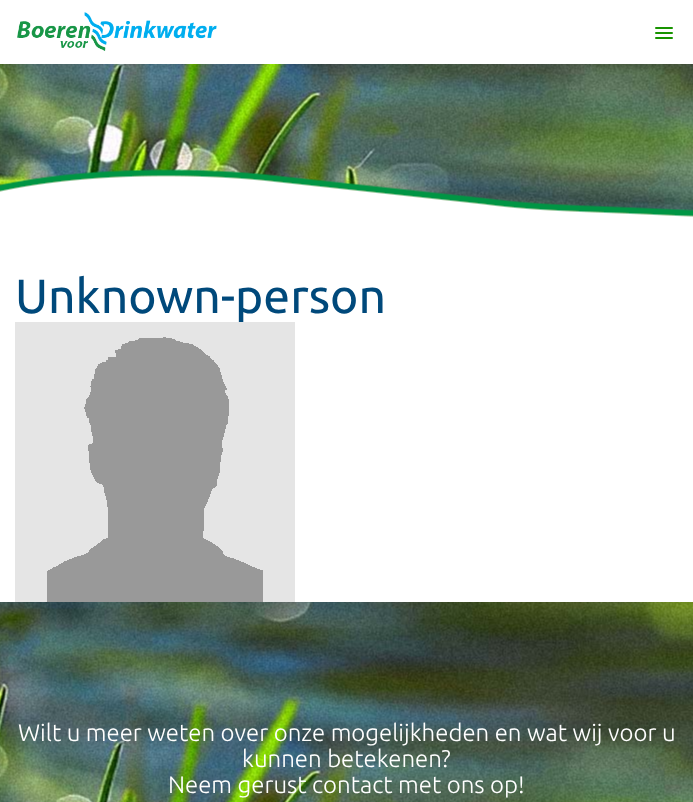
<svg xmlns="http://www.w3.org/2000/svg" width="693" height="802">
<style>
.a{font:48px Ubuntu;fill:#00497b}
.b{font:300 24px Ubuntu;fill:#fff}
</style>
<rect width="100%" height="100%" fill="#fff"/>
<image href="1.png" x="17" y="12" width="200" height="39"/>
<rect fill="#189400" x="655" y="27" width="18" height="2" rx="1"/>
<rect fill="#189400" x="655" y="32" width="18" height="2" rx="1"/>
<rect fill="#189400" x="655" y="37" width="18" height="2" rx="1"/>
<image href="2.png" x="0" y="64" width="693" height="147"/>
<image href="3.png" x="0" y="169" width="693" height="100"/>
<image href="4.png" x="15" y="322" width="280" height="280"/>
<image href="5.png" x="0" y="602" width="693" height="200"/>
<text class="a" x="15" y="313">Unknown-person</text>
<text class="b" x="18" y="741">Wilt u meer weten over onze mogelijkheden en wat wij voor u</text>
<text class="b" x="242" y="767">kunnen betekenen?</text>
<text class="b" x="168" y="793">Neem gerust contact met ons op!</text>
</svg>
